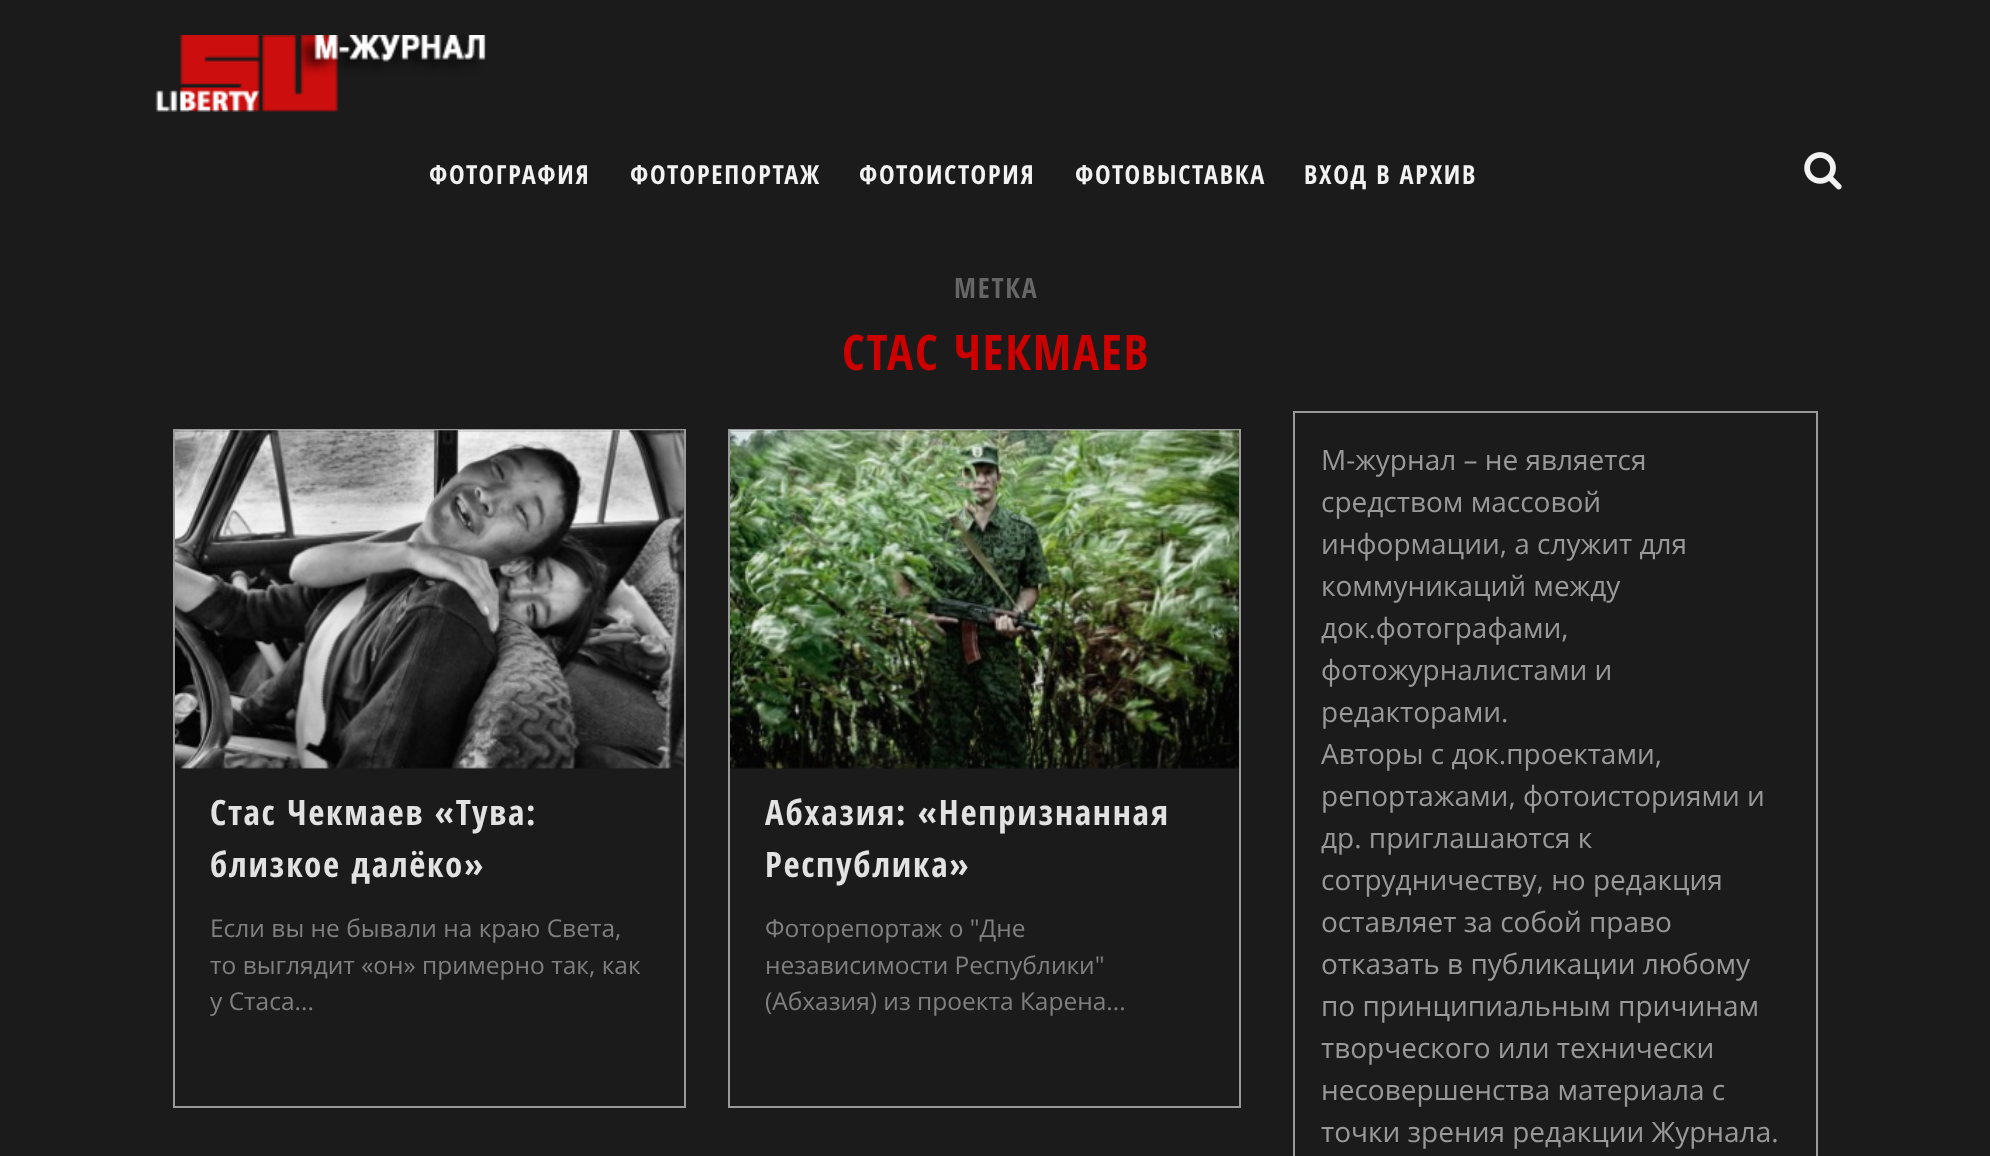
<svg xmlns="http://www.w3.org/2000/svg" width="1990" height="1156">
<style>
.a{font:bold 26.25px Open Sans Condensed;letter-spacing:1.75px;fill:#f2f2f2}
.b{font:bold 28px Open Sans Condensed;letter-spacing:1.75px;fill:#666}
.c{font:bold 49px Open Sans Condensed;letter-spacing:1.75px;fill:#c00}
.d{font:bold 35px Open Sans Condensed;letter-spacing:1.75px;fill:#e2e2e2}
.e{font:24.5px Open Sans;fill:#808080}
.f{font:28px Open Sans;fill:#999}
</style>
<rect width="100%" height="100%" fill="#1b1b1b"/>
<image href="1.png" x="155" y="35" width="331" height="77"/>
<image href="2.png" x="1804" y="152" width="38" height="38"/>
<path fill="none" stroke="#999" stroke-width="2" d="M174 430h511v677H174z"/>
<image href="3.png" x="175" y="430" width="509" height="339"/>
<path fill="none" stroke="#999" stroke-width="2" d="M729 430h511v677H729z"/>
<image href="4.png" x="730" y="430" width="509" height="339"/>
<path fill="none" stroke="#999" stroke-width="2" d="M1294 412h523v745H1294z"/>
<text class="a" x="429" y="184">ФОТОГРАФИЯ</text>
<text class="a" x="630" y="184">ФОТОРЕПОРТАЖ</text>
<text class="a" x="859" y="184">ФОТОИСТОРИЯ</text>
<text class="a" x="1075" y="184">ФОТОВЫСТАВКА</text>
<text class="a" x="1304" y="184">ВХОД В АРХИВ</text>
<text class="b" x="954" y="298">МЕТКА</text>
<text class="c" x="842" y="370">СТАС ЧЕКМАЕВ</text>
<text class="d" x="210" y="825">Стас Чекмаев «Тува:</text>
<text class="d" x="210" y="877">близкое далёко»</text>
<text class="e" x="210" y="937">Если вы не бывали на краю Света,</text>
<text class="e" x="210" y="974">то выглядит «он» примерно так, как</text>
<text class="e" x="210" y="1010">у Стаса...</text>
<text class="d" x="765" y="825">Абхазия: «Непризнанная</text>
<text class="d" x="765" y="877">Республика»</text>
<text class="e" x="765" y="937">Фоторепортаж о "Дне</text>
<text class="e" x="765" y="974">независимости Республики"</text>
<text class="e" x="765" y="1010">(Абхазия) из проекта Карена...</text>
<text class="f" x="1321" y="470">М-журнал – не является</text>
<text class="f" x="1321" y="512">средством массовой</text>
<text class="f" x="1321" y="554">информации, а служит для</text>
<text class="f" x="1321" y="596">коммуникаций между</text>
<text class="f" x="1321" y="638">док.фотографами,</text>
<text class="f" x="1321" y="680">фотожурналистами и</text>
<text class="f" x="1321" y="722">редакторами.</text>
<text class="f" x="1321" y="764">Авторы с док.проектами,</text>
<text class="f" x="1321" y="806">репортажами, фотоисториями и</text>
<text class="f" x="1321" y="848">др. приглашаются к</text>
<text class="f" x="1321" y="890">сотрудничеству, но редакция</text>
<text class="f" x="1321" y="932">оставляет за собой право</text>
<text class="f" x="1321" y="974">отказать в публикации любому</text>
<text class="f" x="1321" y="1016">по принципиальным причинам</text>
<text class="f" x="1321" y="1058">творческого или технически</text>
<text class="f" x="1321" y="1100">несовершенства материала с</text>
<text class="f" x="1321" y="1142">точки зрения редакции Журнала.</text>
</svg>
